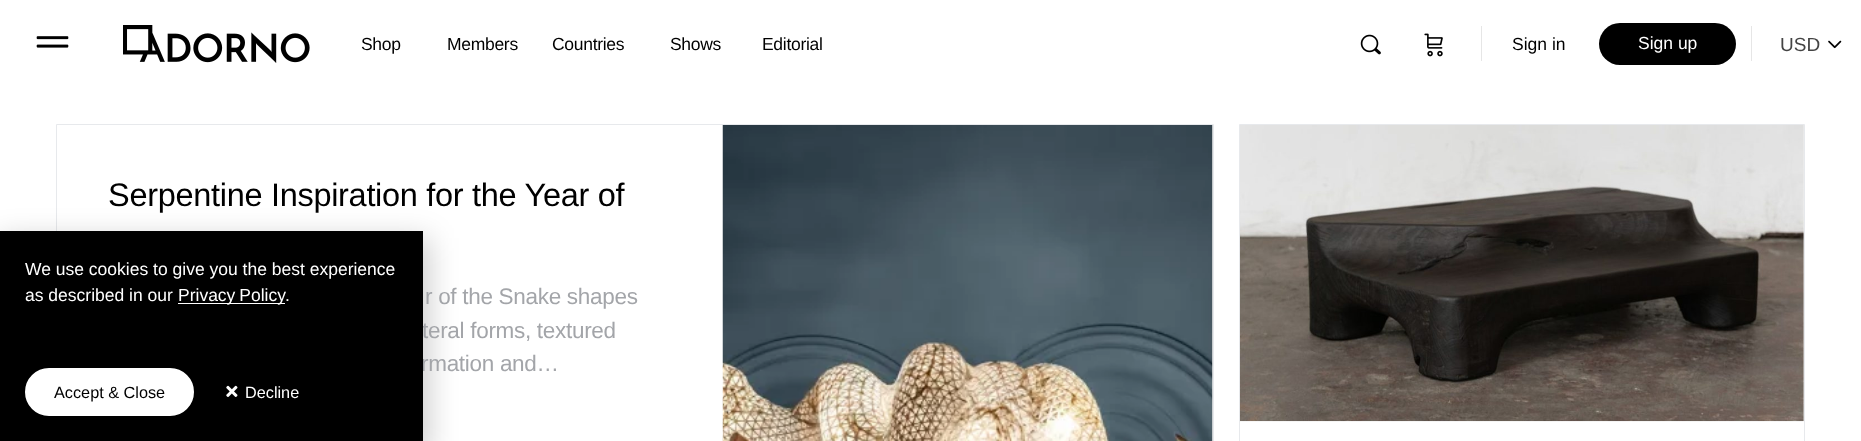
<svg xmlns="http://www.w3.org/2000/svg" width="1861" height="441">
<style>
.a{font:17.5px Liberation Sans;letter-spacing:-0.3px;fill:#000}
.b{font:17.5px Liberation Sans;fill:#000}
.c{font:17.5px Liberation Sans;fill:#fff}
.d{font:19px Liberation Sans;fill:#444}
.e{font:32.5px Liberation Sans;letter-spacing:-0.3px;fill:#000}
.f{font:22.5px Liberation Sans;letter-spacing:-0.3px;fill:#a3a5a9}
.g{font:16.25px Liberation Sans;fill:#000}
.h{font:16.25px Liberation Sans;fill:#fff}
</style>
<rect width="100%" height="100%" fill="#fff"/>
<image href="1.png" x="36" y="36" width="33" height="12"/>
<image href="2.png" x="123" y="25" width="187" height="38"/>
<image href="3.png" x="1360" y="34" width="21" height="21"/>
<image href="4.png" x="1424" y="33" width="19" height="24"/>
<path fill="#e6e6e6" d="M1481 26h1v35H1481z"/>
<rect fill="#000" x="1599" y="23" width="137" height="42" rx="21"/>
<path fill="#e6e6e6" d="M1751 26h1v35H1751z"/>
<image href="5.png" x="1828" y="40" width="14" height="9"/>
<path fill="none" stroke="#e7e9ec" d="M56.5 124.5h1157v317H56.5z"/>
<path fill="#f2f2f2" d="M1212 125h1v316H1212z"/>
<image href="6.png" x="722" y="125" width="491" height="316"/>
<path fill="none" stroke="#e7e9ec" d="M1239.5 124.5h565v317H1239.5z"/>
<path fill="#f2f2f2" d="M1803 125h1v296H1803z"/>
<image href="7.png" x="1240" y="125" width="564" height="297"/>
<path fill="#00000033" filter="blur(14.5px)" d="M-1 238h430v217H-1z"/>
<text class="a" x="361" y="50">Shop</text>
<text class="a" x="447" y="50">Members</text>
<text class="a" x="552" y="50">Countries</text>
<text class="a" x="670" y="50">Shows</text>
<text class="a" x="762" y="50">Editorial</text>
<text class="b" x="1512" y="50">Sign in</text>
<text class="c" x="1638" y="49">Sign up</text>
<text class="d" x="1780" y="51">USD</text>
<text class="e" x="108" y="206">Serpentine Inspiration for the Year of</text>
<text class="f" x="425" y="304">r of the Snake shapes</text>
<text class="f" x="422" y="338">teral forms, textured</text>
<text class="f" x="421" y="371">rmation and…</text>
<path fill="#000" d="M0 231h423v210H0z"/>
<text class="c" x="25" y="275">We use cookies to give you the best experience</text>
<text class="c" x="25" y="301">as described in our</text>
<path fill="#fff" d="M178 303h107v1H178z"/>
<text class="c" x="178" y="301" word-spacing="-1">Privacy Policy</text>
<text class="c" x="285" y="301">.</text>
<rect fill="#fff" stroke="#fff" stroke-width="4" x="27" y="370" width="165" height="44" rx="22"/>
<text class="g" x="54" y="398">Accept &amp; Close</text>
<image href="8.png" x="226" y="385" width="12" height="12"/>
<text class="h" x="245" y="398">Decline</text>
</svg>
